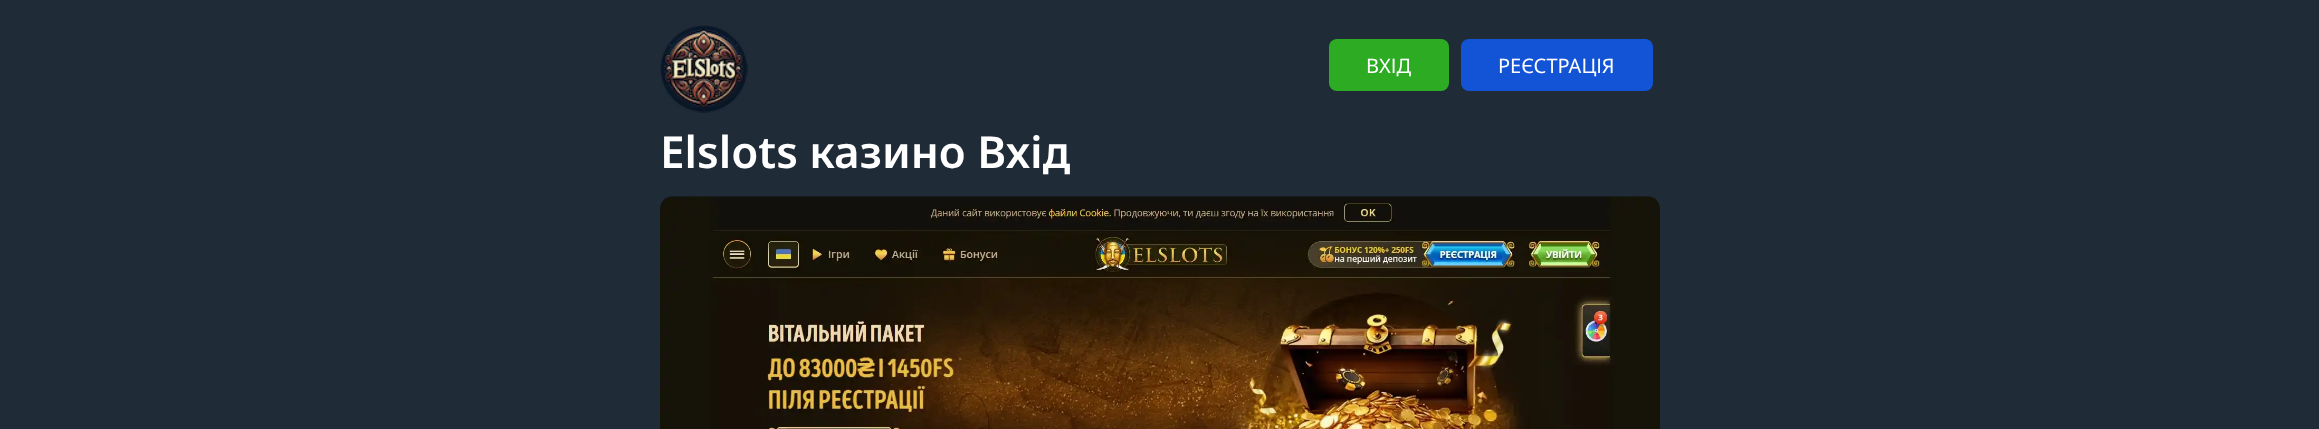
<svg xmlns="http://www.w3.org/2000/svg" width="2319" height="429">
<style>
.a{font:20px Noto Sans;fill:#fff}
.b{font:600 44px Noto Sans;fill:#fff}
</style>
<rect width="100%" height="100%" fill="#202b38"/>
<image href="1.png" x="660" y="25" width="88" height="88"/>
<rect fill="#2cab23" x="1329" y="39" width="120" height="52" rx="8"/>
<rect fill="#1354d7" x="1461" y="39" width="192" height="52" rx="8"/>
<image href="2.png" x="660" y="196" width="1000" height="233"/>
<text class="a" x="1366" y="73">ВХІД</text>
<text class="a" x="1498" y="73">РЕЄСТРАЦІЯ</text>
<text class="b" x="660" y="168">Elslots казино Вхід</text>
</svg>
